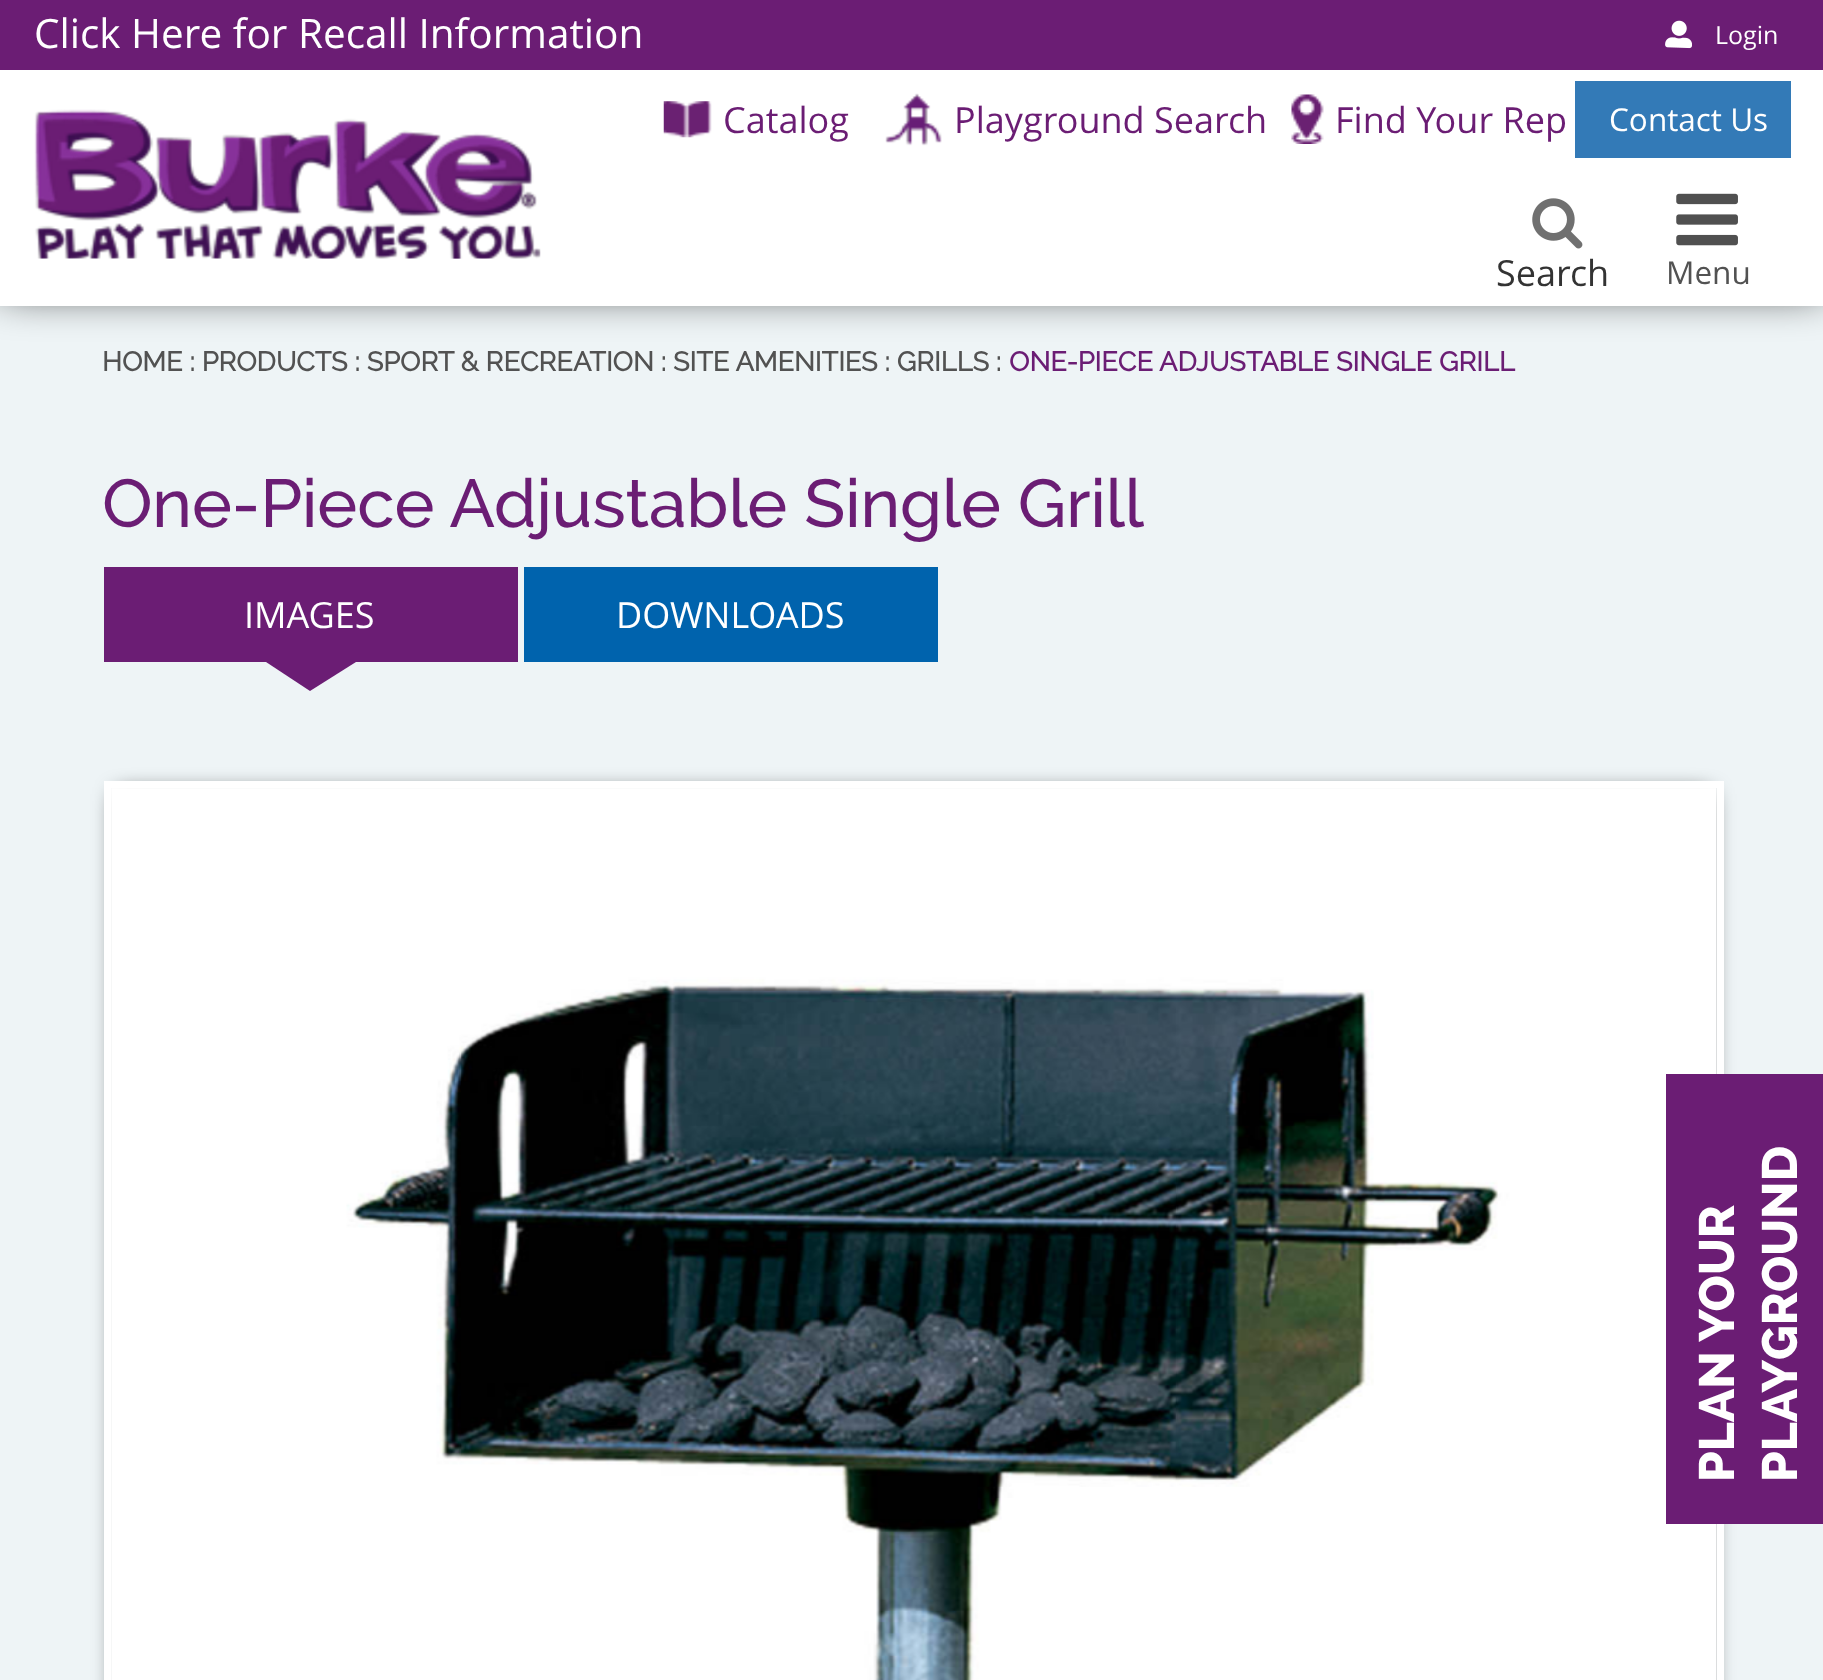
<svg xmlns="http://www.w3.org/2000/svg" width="1823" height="1680">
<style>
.a{font:40.5px Open Sans;fill:#fff}
.b{font:25px Open Sans;fill:#fff}
.c{font:36px Open Sans;fill:#6b1d74}
.d{font:31.5px Open Sans;fill:#fff}
.e{font:36px Open Sans;fill:#333}
.f{font:31.5px Open Sans;fill:#525252}
.g{font:800 49.5px Raleway;fill:#fff}
.h{font:bold 27px Raleway;fill:#525252}
.i{font:bold 27px Raleway;fill:#6b1d74}
.j{font:500 67.5px Raleway;fill:#6b1d74}
.k{font:36px Open Sans;fill:#fff}
</style>
<rect width="100%" height="100%" fill="#eef4f6"/>
<path fill="#000" filter="blur(22.5px)" d="M0 -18h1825v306H0z"/>
<path fill="#fff" d="M0 70h1823v236H0z"/>
<path fill="#6b1d74" d="M0 0h1823v70H0z"/>
<image href="1.png" x="1665" y="20" width="27" height="29"/>
<image href="2.png" x="34" y="109" width="507" height="150"/>
<image href="3.png" x="663" y="101" width="49" height="37"/>
<image href="4.png" x="885" y="93" width="57" height="53"/>
<image href="5.png" x="1291" y="94" width="33" height="50"/>
<path fill="#337ab7" d="M1575 81h216v77H1575z"/>
<image href="6.png" x="1532" y="198" width="51" height="51"/>
<image href="7.png" x="1676" y="193" width="62" height="53"/>
<path fill="#000" filter="blur(11px)" d="M117 794h1593v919H117z"/>
<path fill="none" stroke="#fff" stroke-width="7" d="M107.5 784.5h1613v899H107.5z"/>
<image href="8.png" x="111" y="788" width="1606" height="892"/>
<path fill="#6b1d74" d="M1666 1074h157v450H1666z"/>
<path fill="#6b1d74" d="M104 567h414v95H104z"/>
<path fill="#6b1d74" d="M266 662h90l-46 29z"/>
<path fill="#0063ad" d="M524 567h414v95H524z"/>
<text class="a" x="34" y="48">Click Here for Recall Information</text>
<text class="b" x="1715" y="44">Login</text>
<text class="c" x="723" y="133">Catalog</text>
<text class="c" x="954" y="133">Playground Search</text>
<text class="c" x="1335" y="133">Find Your Rep</text>
<text class="d" x="1609" y="131">Contact Us</text>
<text class="e" x="1496" y="286">Search</text>
<text class="f" x="1666" y="284">Menu</text>
<text class="g" x="1734" y="1482" transform="rotate(-90 1734 1482)">PLAN YOUR</text>
<text class="g" x="1797" y="1482" transform="rotate(-90 1797 1482)">PLAYGROUND</text>
<text class="h" x="102" y="371">HOME : PRODUCTS : SPORT &amp; RECREATION : SITE AMENITIES : GRILLS :</text>
<text class="i" x="1009" y="371">ONE-PIECE ADJUSTABLE SINGLE GRILL</text>
<text class="j" x="102" y="527">One-Piece Adjustable Single Grill</text>
<text class="k" x="244" y="628">IMAGES</text>
<text class="k" x="616" y="628">DOWNLOADS</text>
</svg>
